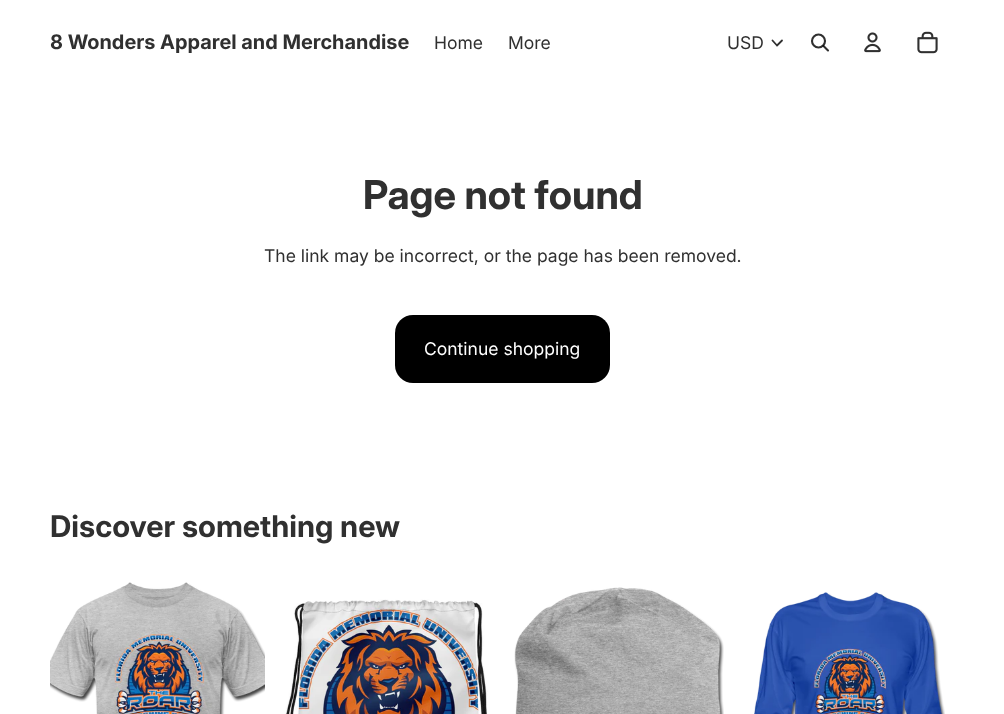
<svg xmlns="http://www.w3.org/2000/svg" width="1004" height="714">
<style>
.a{font:bold 20px 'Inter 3';fill:#303030}
.b{font:17.5px Inter;fill:#303030}
.c{font:bold 40px Inter;fill:#303030}
.d{font:17.5px Inter;fill:#fff}
.e{font:bold 30px 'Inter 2';fill:#303030}
</style>
<rect width="100%" height="100%" fill="#fff"/>
<path fill="none" stroke="#303030" stroke-width="1.8" stroke-linecap="round" stroke-linejoin="round" d="M782 40.5l-5 5l-4.5-5"/>
<circle fill="none" stroke="#303030" stroke-width="2.1" cx="818.5" cy="41" r="6.5"/>
<path fill="none" stroke="#000000cf" stroke-width="2.1" stroke-linecap="round" stroke-linejoin="round" d="M823.5 46l4.5 4.5"/>
<image href="1.png" x="864" y="32" width="17" height="21"/>
<image href="2.png" x="917" y="31" width="21" height="23"/>
<rect fill="#000" x="395" y="315" width="215" height="68" rx="18"/>
<image href="3.png" x="50" y="582" width="215" height="132"/>
<image href="4.png" x="285" y="599" width="203" height="115"/>
<image href="5.png" x="514" y="587" width="210" height="127"/>
<image href="6.png" x="754" y="592" width="191" height="122"/>
<text class="a" x="50" y="49">8 Wonders Apparel and Merchandise</text>
<text class="b" x="434" y="49">Home</text>
<text class="b" x="508" y="49">More</text>
<text class="b" x="727" y="49">USD</text>
<text class="c" x="363" y="209">Page not found</text>
<text class="b" x="264" y="262">The link may be incorrect, or the page has been removed.</text>
<text class="d" x="424" y="355">Continue shopping</text>
<text class="e" x="50" y="537">Discover something new</text>
</svg>
